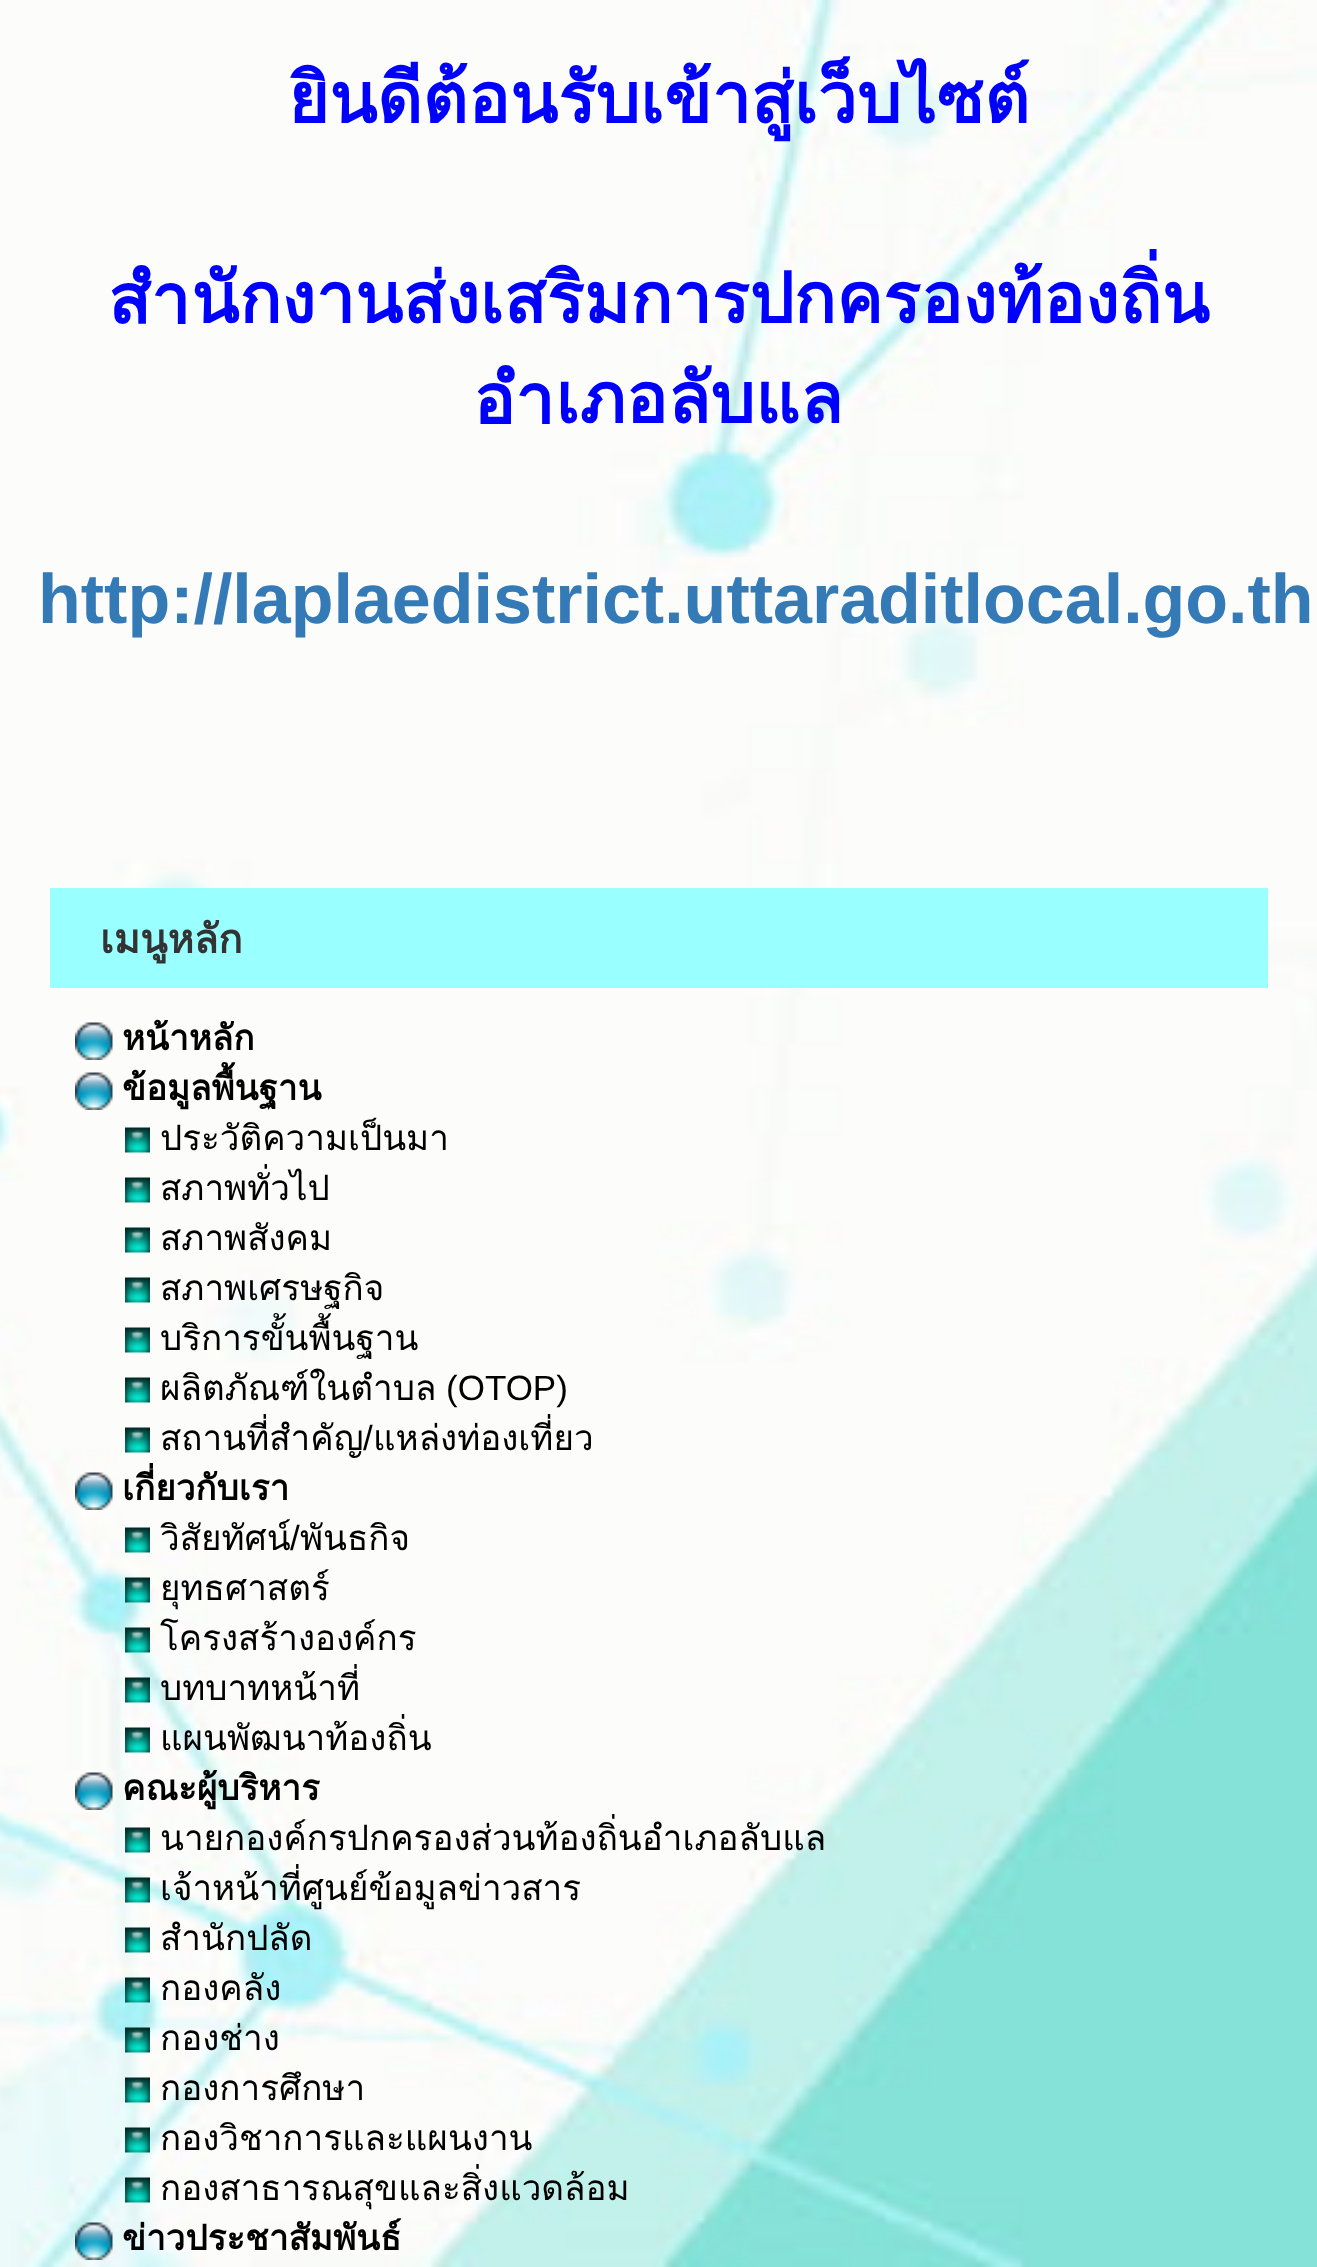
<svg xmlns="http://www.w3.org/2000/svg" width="1317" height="2267">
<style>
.a{font:bold 70px Loma;fill:#00f}
.b{font:bold 70px Liberation Sans;fill:#337ab7}
.c{font:bold 40px Loma;fill:#333}
.d{font:bold 35px Loma;fill:#000}
.e{font:35px Loma;fill:#000}
.f{font:35px Liberation Sans;fill:#000}
</style>
<rect width="100%" height="100%" fill="#fff"/>
<image href="1.png" x="0" y="0" width="1317" height="2267"/>
<path fill="#9ff" d="M50 888h1218v100H50z"/>
<image href="2.png" x="75" y="1022" width="38" height="38"/>
<image href="3.png" x="75" y="1072" width="38" height="38"/>
<image href="4.png" x="125" y="1127" width="25" height="26"/>
<image href="4.png" x="125" y="1177" width="25" height="26"/>
<image href="4.png" x="125" y="1227" width="25" height="26"/>
<image href="4.png" x="125" y="1277" width="25" height="26"/>
<image href="4.png" x="125" y="1327" width="25" height="26"/>
<image href="4.png" x="125" y="1377" width="25" height="26"/>
<image href="4.png" x="125" y="1427" width="25" height="26"/>
<image href="5.png" x="75" y="1472" width="38" height="38"/>
<image href="6.png" x="125" y="1527" width="25" height="26"/>
<image href="7.png" x="125" y="1577" width="25" height="26"/>
<image href="8.png" x="125" y="1627" width="25" height="26"/>
<image href="9.png" x="125" y="1677" width="25" height="26"/>
<image href="10.png" x="125" y="1727" width="25" height="26"/>
<image href="11.png" x="75" y="1772" width="38" height="38"/>
<image href="12.png" x="125" y="1827" width="25" height="26"/>
<image href="13.png" x="125" y="1877" width="25" height="26"/>
<image href="14.png" x="125" y="1927" width="25" height="26"/>
<image href="15.png" x="125" y="1977" width="25" height="26"/>
<image href="16.png" x="125" y="2027" width="25" height="26"/>
<image href="17.png" x="125" y="2077" width="25" height="26"/>
<image href="18.png" x="125" y="2127" width="25" height="26"/>
<image href="19.png" x="125" y="2177" width="25" height="26"/>
<image href="20.png" x="75" y="2222" width="38" height="38"/>
<text class="a" x="288" y="123">ยินดีต้อนรับเข้าสู่เว็บไซต์</text>
<text class="a" x="109" y="323">สำนักงานส่งเสริมการปกครองท้องถิ่น</text>
<text class="a" x="474" y="423">อำเภอลับแล</text>
<text class="b" x="38" y="623">http://laplaedistrict.uttaraditlocal.go.th</text>
<text class="c" x="100" y="953">เมนูหลัก</text>
<text class="d" x="122" y="1050">หน้าหลัก</text>
<text class="d" x="122" y="1100">ข้อมูลพื้นฐาน</text>
<text class="e" x="160" y="1150">ประวัติความเป็นมา</text>
<text class="e" x="160" y="1200">สภาพทั่วไป</text>
<text class="e" x="160" y="1250">สภาพสังคม</text>
<text class="e" x="160" y="1300">สภาพเศรษฐกิจ</text>
<text class="e" x="160" y="1350">บริการขั้นพื้นฐาน</text>
<text class="e" x="160" y="1400">ผลิตภัณฑ์ในตำบล</text>
<text class="f" x="446" y="1400">(OTOP)</text>
<text class="e" x="160" y="1450">สถานที่สำคัญ</text>
<text class="f" x="363" y="1450">/</text>
<text class="e" x="373" y="1450">แหล่งท่องเที่ยว</text>
<text class="d" x="122" y="1500">เกี่ยวกับเรา</text>
<text class="e" x="160" y="1550">วิสัยทัศน์</text>
<text class="f" x="290" y="1550">/</text>
<text class="e" x="300" y="1550">พันธกิจ</text>
<text class="e" x="160" y="1600">ยุทธศาสตร์</text>
<text class="e" x="160" y="1650">โครงสร้างองค์กร</text>
<text class="e" x="160" y="1700">บทบาทหน้าที่</text>
<text class="e" x="160" y="1750">แผนพัฒนาท้องถิ่น</text>
<text class="d" x="122" y="1800">คณะผู้บริหาร</text>
<text class="e" x="160" y="1850">นายกองค์กรปกครองส่วนท้องถิ่นอำเภอลับแล</text>
<text class="e" x="160" y="1900">เจ้าหน้าที่ศูนย์ข้อมูลข่าวสาร</text>
<text class="e" x="160" y="1950">สำนักปลัด</text>
<text class="e" x="160" y="2000">กองคลัง</text>
<text class="e" x="160" y="2050">กองช่าง</text>
<text class="e" x="160" y="2100">กองการศึกษา</text>
<text class="e" x="160" y="2150">กองวิชาการและแผนงาน</text>
<text class="e" x="160" y="2200">กองสาธารณสุขและสิ่งแวดล้อม</text>
<text class="d" x="122" y="2250">ข่าวประชาสัมพันธ์</text>
</svg>
